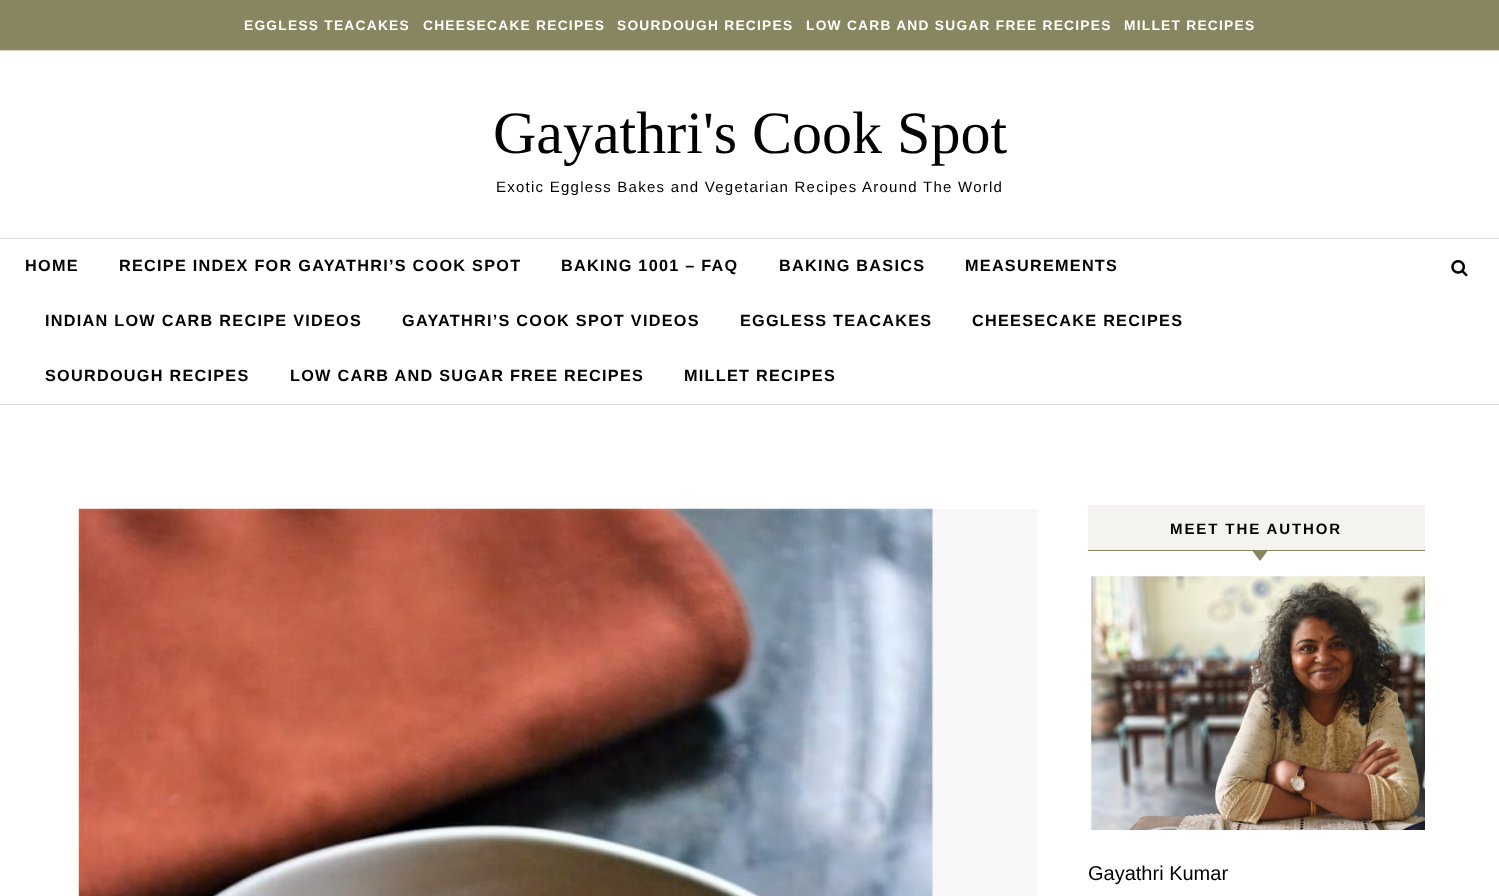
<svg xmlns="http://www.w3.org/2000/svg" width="1499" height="896">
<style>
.a{font:bold 13.75px Liberation Sans;letter-spacing:1.25px;fill:#fff}
.b{font:60px Liberation Serif;fill:#010101}
.c{font:15px Liberation Sans;letter-spacing:1.25px;fill:#010101}
.d{font:bold 16.25px Liberation Sans;letter-spacing:1.25px;fill:#010101}
.e{font:bold 15px Liberation Sans;letter-spacing:1.9px;fill:#010101}
.f{font:20px Liberation Sans;fill:#010101}
</style>
<rect width="100%" height="100%" fill="#fff"/>
<path fill="#888561" d="M0 0h1499v50H0z"/>
<path fill="#d9d1c0" d="M0 50h1499v1H0z"/>
<path fill="#ddd" d="M0 238h1499v1H0z"/>
<path fill="#ddd" d="M0 404h1499v1H0z"/>
<image href="1.png" x="1451" y="260" width="17" height="17"/>
<path fill="#f7f7f7" d="M932 509h106v387H932z"/>
<image href="2.png" x="78" y="508" width="855" height="388"/>
<path fill="#f5f3ef" d="M1088 505h337v45H1088z"/>
<path fill="#888561" d="M1088 550h337v1H1088z"/>
<path fill="#888561" d="M1252.5 551h15l-7.5 10z"/>
<image href="3.png" x="1091" y="576" width="334" height="254"/>
<text class="a" x="244" y="30">EGGLESS TEACAKES</text>
<text class="a" x="423" y="30">CHEESECAKE RECIPES</text>
<text class="a" x="617" y="30">SOURDOUGH RECIPES</text>
<text class="a" x="806" y="30">LOW CARB AND SUGAR FREE RECIPES</text>
<text class="a" x="1124" y="30">MILLET RECIPES</text>
<text class="b" x="493" y="153">Gayathri's Cook Spot</text>
<text class="c" x="496" y="192">Exotic Eggless Bakes and Vegetarian Recipes Around The World</text>
<text class="d" x="25" y="271">HOME</text>
<text class="d" x="119" y="271">RECIPE INDEX FOR GAYATHRI’S COOK SPOT</text>
<text class="d" x="561" y="271">BAKING 1001 – FAQ</text>
<text class="d" x="779" y="271">BAKING BASICS</text>
<text class="d" x="965" y="271">MEASUREMENTS</text>
<text class="d" x="45" y="326">INDIAN LOW CARB RECIPE VIDEOS</text>
<text class="d" x="402" y="326">GAYATHRI’S COOK SPOT VIDEOS</text>
<text class="d" x="740" y="326">EGGLESS TEACAKES</text>
<text class="d" x="972" y="326">CHEESECAKE RECIPES</text>
<text class="d" x="45" y="381">SOURDOUGH RECIPES</text>
<text class="d" x="290" y="381">LOW CARB AND SUGAR FREE RECIPES</text>
<text class="d" x="684" y="381">MILLET RECIPES</text>
<text class="e" x="1170" y="534">MEET THE AUTHOR</text>
<text class="f" x="1088" y="880">Gayathri Kumar</text>
</svg>
